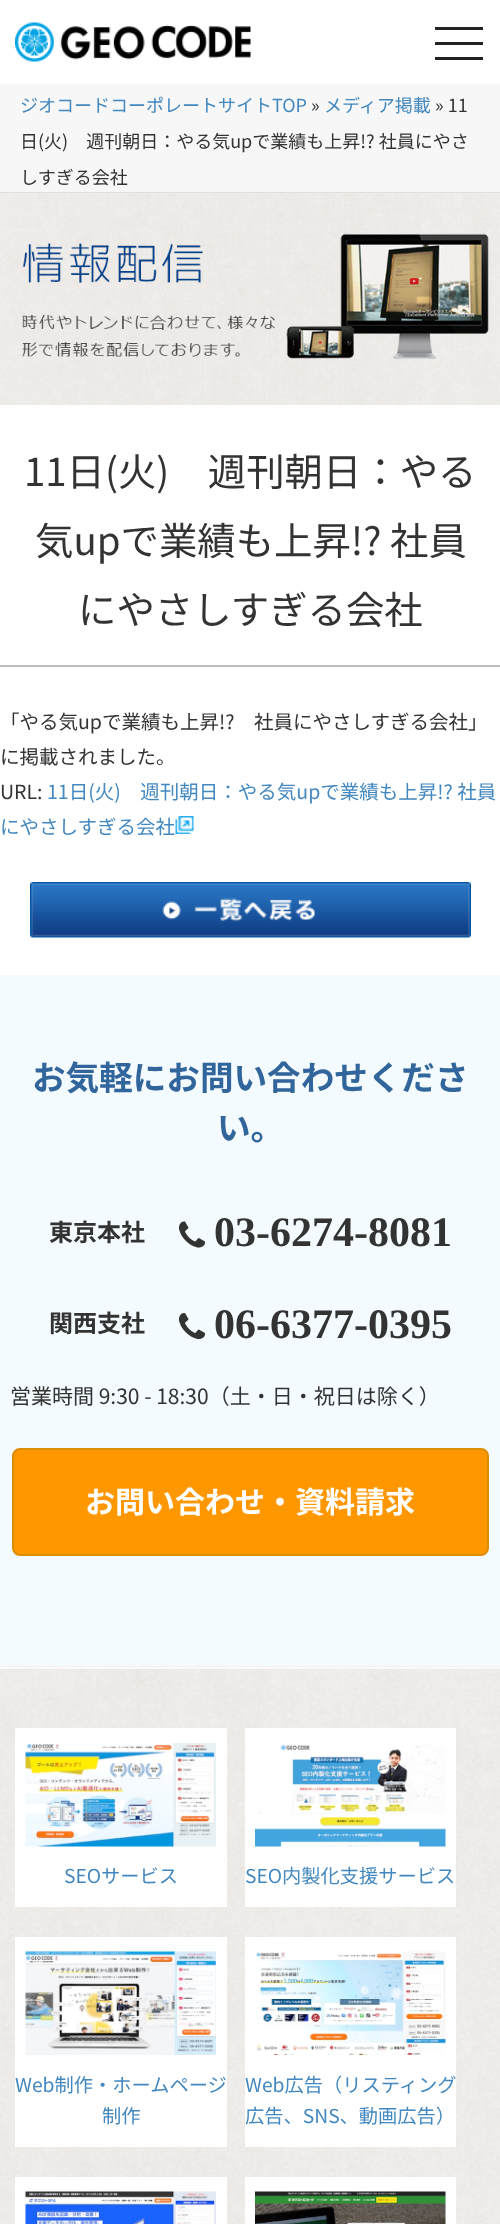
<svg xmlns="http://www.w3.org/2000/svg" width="500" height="2224">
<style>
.a{font:18px Noto Sans JP;fill:#4388bf}
.b{font:18px Noto Sans JP;fill:#333}
.c{font:38.4px Noto Sans JP;fill:#333}
.d{font:19.5px Noto Sans JP;fill:#333}
.e{font:19.5px Noto Sans JP;fill:#4388bf}
.f{font:bold 33.6px Noto Sans JP;fill:#31659b}
.g{font:bold 24px Noto Sans JP;fill:#333}
.h{font:bold 42px Liberation Serif;fill:#333}
.i{font:21px Noto Sans JP;fill:#333}
.j{font:bold 30px Noto Sans JP;fill:#fff}
.k{font:19.25px Noto Sans JP;fill:#4388bf}
</style>
<rect width="100%" height="100%" fill="#fff"/>
<image href="1.png" x="15" y="22" width="236" height="40"/>
<path fill="#222" d="M435 42h48v3H435z"/>
<path fill="#222" d="M435 27h48v3H435z"/>
<path fill="#222" d="M435 57h48v3H435z"/>
<path fill="#f7f7f7" d="M0 84h500v108H0z"/>
<path fill="#e0dfdc" d="M0 192h500v2H0z"/>
<image href="2.png" x="0" y="193" width="500" height="1"/>
<image href="3.png" x="0" y="193" width="500" height="212"/>
<path fill="#bfbebc" d="M0 665h500v2H0z"/>
<image href="4.png" x="175" y="816" width="19" height="18"/>
<image href="5.png" x="30" y="882" width="441" height="56"/>
<path fill="#f3fbfe" d="M0 975h500v692H0z"/>
<image href="6.png" x="179" y="1221" width="27" height="27"/>
<image href="7.png" x="179" y="1313" width="27" height="27"/>
<rect fill="#ff9800" stroke="#dc8d06" stroke-width="2" x="13" y="1449" width="475" height="106" rx="7"/>
<image href="8.png" x="0" y="1666" width="500" height="558"/>
<path fill="#faf9f8" d="M0 1667h500v2H0z"/>
<path fill="#fff" d="M15 1728h212v179H15z"/>
<image href="9.png" x="25" y="1743" width="191" height="104"/>
<path fill="#fff" d="M245 1728h211v179H245z"/>
<image href="10.png" x="255" y="1744" width="191" height="103"/>
<path fill="#fff" d="M15 1937h212v210H15z"/>
<image href="11.png" x="25" y="1951" width="191" height="104"/>
<path fill="#fff" d="M245 1937h211v210H245z"/>
<image href="12.png" x="256" y="1951" width="190" height="104"/>
<path fill="#fff" d="M15 2177h212v47H15z"/>
<image href="13.png" x="25" y="2191" width="191" height="33"/>
<path fill="#fff" d="M245 2177h211v47H245z"/>
<image href="14.png" x="255" y="2191" width="191" height="33"/>
<text class="a" x="20" y="112">ジオコードコーポレートサイトTOP</text>
<text class="b" x="311" y="112">»</text>
<text class="a" x="324" y="112">メディア掲載</text>
<text class="b" x="435" y="112">» 11</text>
<text class="b" x="20" y="148">日(火)　週刊朝日：やる気upで業績も上昇!? 社員にやさ</text>
<text class="b" x="20" y="184">しすぎる会社</text>
<text class="c" x="24" y="486">11日(火)　週刊朝日：やる</text>
<text class="c" x="35" y="555">気upで業績も上昇!? 社員</text>
<text class="c" x="78" y="624">にやさしすぎる会社</text>
<text class="d" x="0" y="729">「やる気upで業績も上昇!?　社員にやさしすぎる会社」</text>
<text class="d" x="0" y="764">に掲載されました。</text>
<text class="e" x="47" y="799">11日(火)　週刊朝日：やる気upで業績も上昇!? 社員</text>
<text class="e" x="0" y="834">にやさしすぎる会社</text>
<text class="d" x="0" y="799">URL:</text>
<text class="f" x="32" y="1090">お気軽にお問い合わせくださ</text>
<text class="f" x="217" y="1140">い。</text>
<text class="g" x="49" y="1241">東京本社</text>
<text class="h" x="214" y="1246">03-6274-8081</text>
<text class="g" x="49" y="1332">関西支社</text>
<text class="h" x="214" y="1338">06-6377-0395</text>
<text class="i" x="10" y="1404">営業時間 9:30 - 18:30（土・日・祝日は除く）</text>
<text class="j" x="85" y="1513">お問い合わせ・資料請求</text>
<text class="k" x="64" y="1883">SEOサービス</text>
<text class="k" x="245" y="1883">SEO内製化支援サービス</text>
<text class="k" x="15" y="2092">Web制作・ホームページ</text>
<text class="k" x="102" y="2123">制作</text>
<text class="k" x="245" y="2092">Web広告（リスティング</text>
<text class="k" x="245" y="2123">広告、SNS、動画広告）</text>
</svg>
